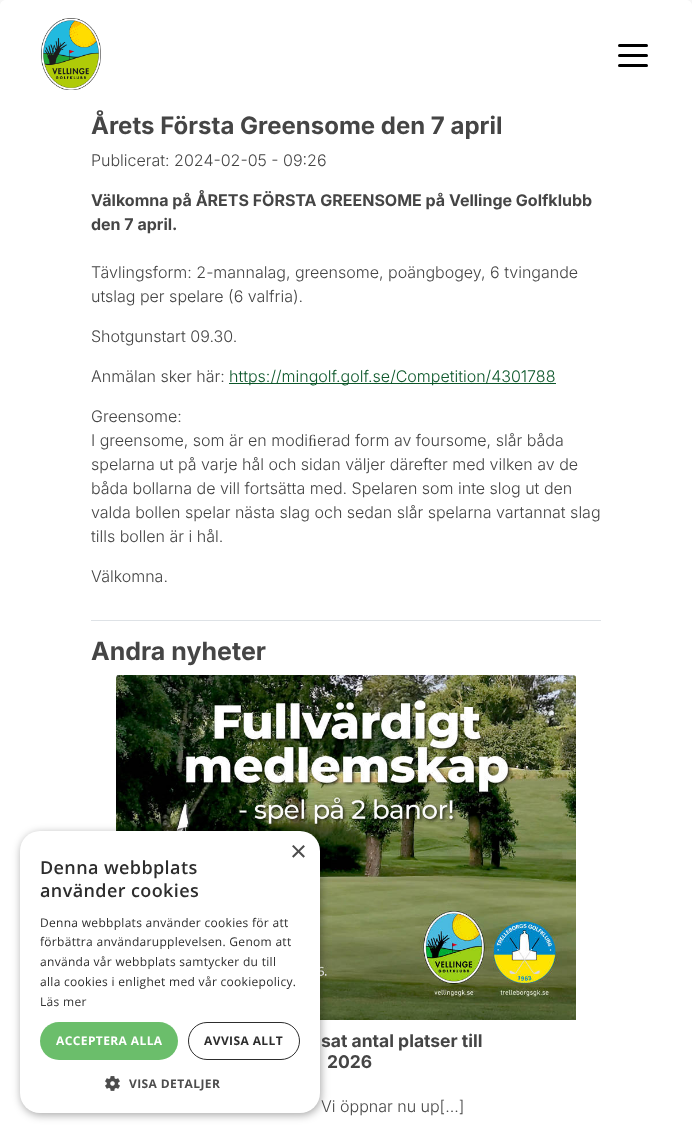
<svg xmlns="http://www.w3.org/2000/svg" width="692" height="1133">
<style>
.a{font:bold 24px Inter;fill:#454545}
.b{font:300 16px Inter;fill:#454545}
.c{font:bold 16px Inter;fill:#454545}
.d{font:300 16px Inter;fill:#0c572a}
.e{font:16px Liberation Serif;fill:#454545}
.f{font:bold 25px Inter;fill:#454545}
.g{font:bold 17.5px Inter;fill:#454545}
.h{font:29px Liberation Sans;fill:#4d4d4d}
.i{font:600 18px Open Sans;letter-spacing:0.4px;fill:#2d2d2d}
.j{font:12px Open Sans;letter-spacing:0.3px;fill:#2d2d2d}
.k{font:12px Open Sans;letter-spacing:0.3px;fill:#333}
.l{font:bold 12px Open Sans;letter-spacing:0.4px;fill:#fff}
.m{font:bold 12px Open Sans;letter-spacing:0.4px;fill:#2d2d2d}
.n{font:bold 12px Open Sans;letter-spacing:0.4px;fill:#4d4d4d}
</style>
<rect width="100%" height="100%" fill="#f6f6f6"/>
<path fill="#fff" d="M6 0h680c3.5 0 6 2.5 6 6v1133h-692v-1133c0-3.5 2.5-6 6-6z"/>
<image href="1.png" x="41" y="18" width="60" height="72"/>
<rect fill="#000" x="618" y="44" width="30" height="3" rx="1.5"/>
<rect fill="#000" x="618" y="54" width="30" height="3" rx="1.5"/>
<rect fill="#000" x="618" y="64" width="30" height="3" rx="1.5"/>
<path fill="#0c572a" d="M229 383h327v1H229z"/>
<path fill="#dee2e6" d="M91 620h510v1H91z"/>
<image href="2.png" x="116" y="675" width="460" height="345"/>
<rect fill="#00000059" filter="blur(4px)" x="21" y="833" width="300" height="282" rx="20"/>
<rect fill="#fff" x="20" y="831" width="300" height="282" rx="20"/>
<rect fill="#6bbe6b" x="40" y="1022" width="138" height="38" rx="19"/>
<rect fill="none" stroke="#2d2d2d" x="188.5" y="1022.5" width="111" height="37" rx="18.5"/>
<image href="3.png" x="105" y="1076" width="15" height="15"/>
<text class="a" x="91" y="134">Årets Första Greensome den 7 april</text>
<text class="b" x="91" y="166">Publicerat: 2024-02-05 - 09:26</text>
<text class="c" x="91" y="206">Välkomna på ÅRETS FÖRSTA GREENSOME på Vellinge Golfklubb</text>
<text class="c" x="91" y="230">den 7 april.</text>
<text class="b" x="91" y="278">Tävlingsform: 2-mannalag, greensome, poängbogey, 6 tvingande</text>
<text class="b" x="91" y="302">utslag per spelare (6 valfria).</text>
<text class="b" x="91" y="342">Shotgunstart 09.30.</text>
<text class="b" x="91" y="382">Anmälan sker här:</text>
<text class="d" x="229" y="382">https://mingolf.golf.se/Competition/4301788</text>
<text class="b" x="91" y="422">Greensome:</text>
<text class="b" x="91" y="446">I greensome, som är en modi</text>
<text class="e" x="308" y="446">ﬁ</text>
<text class="b" x="317" y="446">erad form av foursome, slår båda</text>
<text class="b" x="91" y="470">spelarna ut på varje hål och sidan väljer därefter med vilken av de</text>
<text class="b" x="91" y="494">båda bollarna de vill fortsätta med. Spelaren som inte slog ut den</text>
<text class="b" x="91" y="518">valda bollen spelar nästa slag och sedan slår spelarna vartannat slag</text>
<text class="b" x="91" y="542">tills bollen är i hål.</text>
<text class="b" x="91" y="582">Välkomna.</text>
<text class="f" x="91" y="660">Andra nyheter</text>
<text class="g" x="321" y="1047">sat antal platser till</text>
<text class="g" x="327" y="1068">2026</text>
<text class="b" x="321" y="1112">Vi öppnar nu up[...]</text>
<text class="h" x="290" y="861">×</text>
<text class="i" x="40" y="874">Denna webbplats</text>
<text class="i" x="40" y="897">använder cookies</text>
<text class="j" x="40" y="927">Denna webbplats använder cookies för att</text>
<text class="j" x="40" y="946">förbättra användarupplevelsen. Genom att</text>
<text class="j" x="40" y="966">använda vår webbplats samtycker du till</text>
<text class="j" x="40" y="986">alla cookies i enlighet med vår cookiepolicy.</text>
<text class="k" x="40" y="1006">Läs mer</text>
<text class="l" x="56" y="1045">ACCEPTERA ALLA</text>
<text class="m" x="204" y="1045">AVVISA ALLT</text>
<text class="n" x="129" y="1088">VISA DETALJER</text>
</svg>
